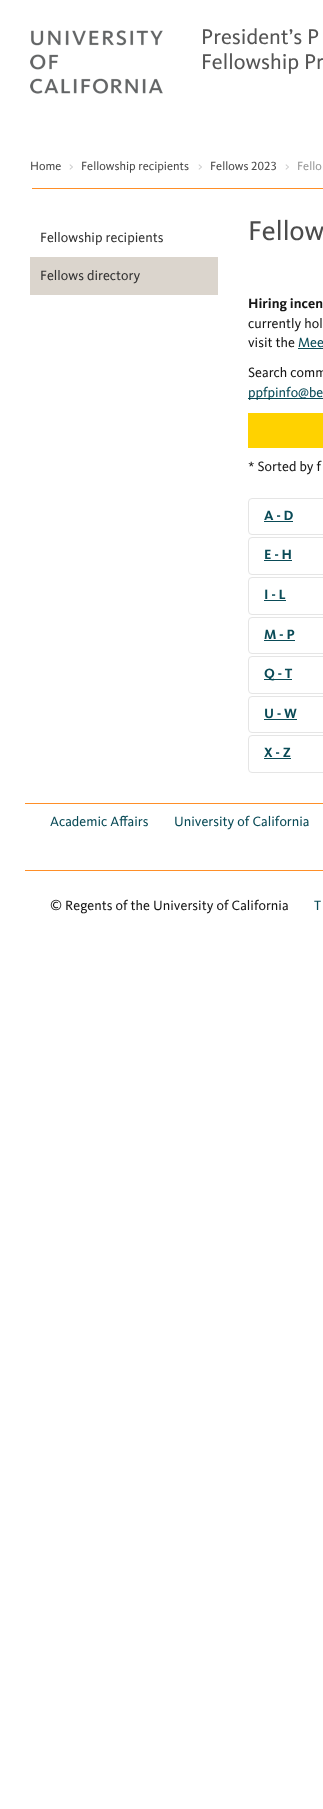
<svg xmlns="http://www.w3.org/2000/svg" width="323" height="1809">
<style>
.a{font:22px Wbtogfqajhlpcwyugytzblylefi;fill:#555}
.b{font:12.25px Wbtogfqajhlpcwyugytzblylefi;fill:#4c4c4c}
.c{font:12.25px Wbtogfqajhlpcwyugytzblylefi;fill:#ccc}
.d{font:12.25px Wbtogfqajhlpcwyugytzblylefi;fill:#999}
.e{font:14px Wbtogfqajhlpcwyugytzblylefi;fill:#333}
.f{font:28px Wbtogfqajhlpcwyugytzblylefi;fill:#4c4c4c}
.g{font:bold 14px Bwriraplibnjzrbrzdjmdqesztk;fill:#171717}
.h{font:14px Wbtogfqajhlpcwyugytzblylefi;fill:#171717}
.i{font:14px Wbtogfqajhlpcwyugytzblylefi;fill:#0a4b57}
.j{font:bold 14px Bwriraplibnjzrbrzdjmdqesztk;fill:#0a4b57}
</style>
<rect width="100%" height="100%" fill="#fff"/>
<image href="1.png" x="30" y="30" width="133" height="64"/>
<path fill="#ff8f28" d="M32 188h291v1H32z"/>
<path fill="#dbd5cd" d="M30 257h188v38H30z"/>
<path fill="#0a4b57" d="M298 348h25v1H298z"/>
<path fill="#0a4b57" d="M248 398h75v1H248z"/>
<path fill="#ffd200" d="M248 413h75v35H248z"/>
<rect fill="none" stroke="#e5e5e5" x="248.5" y="498.5" width="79" height="36" rx="3.5"/>
<path fill="#0a4b57" d="M264 521h29v1H264z"/>
<rect fill="none" stroke="#e5e5e5" x="248.5" y="537.5" width="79" height="37" rx="3.5"/>
<path fill="#0a4b57" d="M264 560h28v1H264z"/>
<rect fill="none" stroke="#e5e5e5" x="248.5" y="577.5" width="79" height="37" rx="3.5"/>
<path fill="#0a4b57" d="M264 600h22v1H264z"/>
<rect fill="none" stroke="#e5e5e5" x="248.5" y="617.5" width="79" height="36" rx="3.5"/>
<path fill="#0a4b57" d="M264 640h31v1H264z"/>
<rect fill="none" stroke="#e5e5e5" x="248.5" y="656.5" width="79" height="37" rx="3.5"/>
<path fill="#0a4b57" d="M264 679h28v1H264z"/>
<rect fill="none" stroke="#e5e5e5" x="248.5" y="696.5" width="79" height="36" rx="3.5"/>
<path fill="#0a4b57" d="M264 719h33v1H264z"/>
<rect fill="none" stroke="#e5e5e5" x="248.5" y="735.5" width="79" height="37" rx="3.5"/>
<path fill="#0a4b57" d="M264 758h27v1H264z"/>
<path fill="#ff8f28" d="M25 803h298v1H25z"/>
<path fill="#ff8f28" d="M25 870h298v1H25z"/>
<text class="a" x="201" y="44">President’s P</text>
<text class="a" x="201" y="69">Fellowship Pr</text>
<text class="b" x="30" y="170">Home</text>
<text class="c" x="69" y="170">&gt;</text>
<text class="b" x="81" y="170">Fellowship recipients</text>
<text class="c" x="198" y="170">&gt;</text>
<text class="b" x="210" y="170">Fellows 2023</text>
<text class="c" x="285" y="170">&gt;</text>
<text class="d" x="297" y="170">Fello</text>
<text class="e" x="40" y="242">Fellowship recipients</text>
<text class="e" x="40" y="280">Fellows directory</text>
<text class="f" x="248" y="240">Fellow</text>
<text class="g" x="248" y="308">Hiring incen</text>
<text class="h" x="248" y="328">currently hol</text>
<text class="h" x="248" y="347">visit the</text>
<text class="i" x="298" y="347">Mee</text>
<text class="h" x="248" y="377">Search comm</text>
<text class="i" x="248" y="397">ppfpinfo@be</text>
<text class="h" x="248" y="471">* Sorted by f</text>
<text class="j" x="264" y="520">A - D</text>
<text class="j" x="264" y="559">E - H</text>
<text class="j" x="264" y="599">I - L</text>
<text class="j" x="264" y="639">M - P</text>
<text class="j" x="264" y="678">Q - T</text>
<text class="j" x="264" y="718">U - W</text>
<text class="j" x="264" y="757">X - Z</text>
<text class="i" x="50" y="826">Academic Affairs</text>
<text class="i" x="174" y="826">University of California</text>
<text class="h" x="50" y="910">© Regents of the University of California</text>
<text class="i" x="314" y="910">T</text>
</svg>
